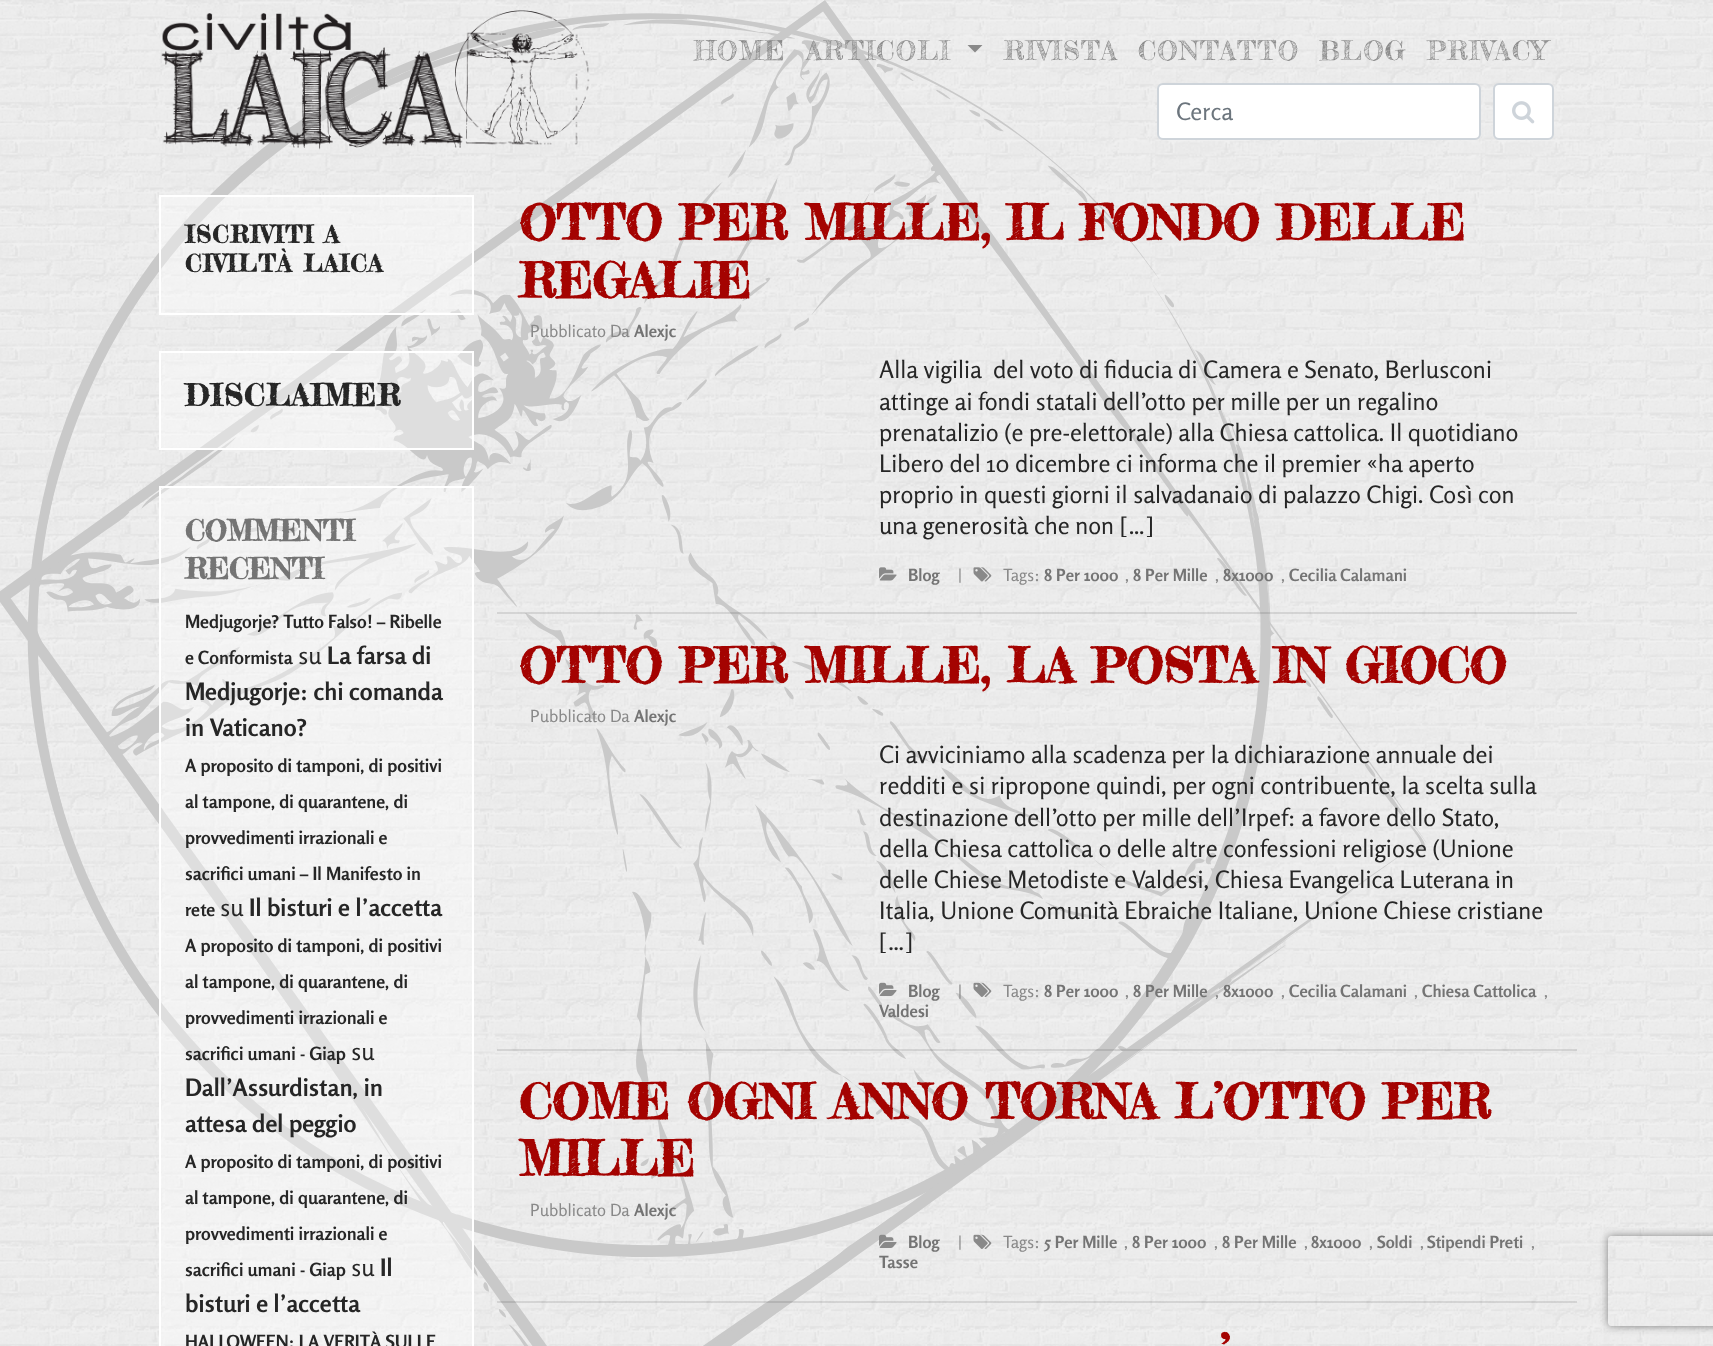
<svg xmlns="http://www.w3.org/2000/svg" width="1713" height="1346">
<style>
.a{font:26.5px Fredericka the Great;letter-spacing:1.25px;fill:#898989}
.b{font:24px Rosario;fill:#6c757d}
.c{font:bold 24px Fredericka the Great;letter-spacing:1.5px;fill:#262626}
.d{font:bold 30px Fredericka the Great;letter-spacing:1.5px;fill:#262626}
.e{font:bold 28.75px Fredericka the Great;fill:#747474}
.f{font:bold 18px Rosario;fill:#262626}
.g{font:24px Rosario;fill:#262626}
.h{font:bold 24px Rosario;fill:#262626}
.i{font:bold 48px Fredericka the Great;fill:#a40301}
.j{font:16.75px Rosario;fill:#898989}
.k{font:bold 16.75px Rosario;fill:#747474}
</style>
<defs>
<clipPath id="clip1"><path d="M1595 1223h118v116h-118zm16 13h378c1.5 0 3 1.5 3 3v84c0 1.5-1.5 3-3 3h-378c-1.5 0-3-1.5-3-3v-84c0-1.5 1.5-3 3-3z" clip-rule="evenodd"/></clipPath>
</defs>
<rect width="100%" height="100%" fill="#fff"/>
<image href="1.png" x="0" y="0" width="1713" height="1346"/>
<image href="2.png" x="161" y="10" width="429" height="140"/>
<path fill="#898989" d="M967.5 45h15l-7.5 7.5z"/>
<rect fill="#fff" stroke="#ced4da" stroke-width="2" x="1158" y="84" width="322" height="55" rx="5"/>
<rect fill="#fff" stroke="#ced4da" stroke-width="2" x="1494" y="84" width="59" height="55" rx="5"/>
<image href="3.png" x="1512" y="101" width="23" height="23"/>
<path fill="#ffffff66" stroke="#fff" stroke-width="2" d="M160 196h313v118H160z"/>
<path fill="#ffffff66" stroke="#fff" stroke-width="2" d="M160 352h313v97H160z"/>
<path fill="#ffffff66" stroke="#fff" stroke-width="2" d="M160 487h313v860H160z"/>
<path fill="#0101011a" d="M497 612h1080v2H497z"/>
<image href="4.png" x="879" y="567" width="18" height="14"/>
<image href="5.png" x="973" y="567" width="19" height="15"/>
<path fill="#0101011a" d="M497 1049h1080v2H497z"/>
<image href="6.png" x="879" y="982" width="18" height="14"/>
<image href="7.png" x="973" y="982" width="19" height="15"/>
<path fill="#0101011a" d="M497 1301h1080v2H497z"/>
<image href="8.png" x="879" y="1234" width="18" height="14"/>
<image href="9.png" x="973" y="1234" width="19" height="15"/>
<g clip-path="url(#clip1)">
<rect fill="#808080" filter="blur(4px)" x="1608" y="1236" width="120" height="90" rx="3"/>
</g>
<text class="a" x="694" y="60">HOME</text>
<text class="a" x="806" y="60">ARTICOLI</text>
<text class="a" x="1004" y="60">RIVISTA</text>
<text class="a" x="1138" y="60">CONTATTO</text>
<text class="a" x="1319" y="60">BLOG</text>
<text class="a" x="1427" y="60">PRIVACY</text>
<text class="b" x="1176" y="120">Cerca</text>
<text class="c" x="185" y="243">ISCRIVITI A</text>
<text class="c" x="185" y="272">CIVILTÀ LAICA</text>
<text class="d" x="185" y="406">DISCLAIMER</text>
<text class="e" x="185" y="541">COMMENTI</text>
<text class="e" x="185" y="579">RECENTI</text>
<text class="f" x="185" y="628">Medjugorje? Tutto Falso! – Ribelle</text>
<text class="f" x="185" y="664">e Conformista</text>
<text class="g" x="298" y="664">su</text>
<text class="h" x="327" y="664">La farsa di</text>
<text class="h" x="185" y="700">Medjugorje: chi comanda</text>
<text class="h" x="185" y="736">in Vaticano?</text>
<text class="f" x="185" y="772">A proposito di tamponi, di positivi</text>
<text class="f" x="185" y="808">al tampone, di quarantene, di</text>
<text class="f" x="185" y="844">provvedimenti irrazionali e</text>
<text class="f" x="185" y="880">sacrifici umani – Il Manifesto in</text>
<text class="f" x="185" y="916">rete</text>
<text class="g" x="220" y="916">su</text>
<text class="h" x="249" y="916">Il bisturi e l’accetta</text>
<text class="f" x="185" y="952">A proposito di tamponi, di positivi</text>
<text class="f" x="185" y="988">al tampone, di quarantene, di</text>
<text class="f" x="185" y="1024">provvedimenti irrazionali e</text>
<text class="f" x="185" y="1060">sacrifici umani - Giap</text>
<text class="g" x="351" y="1060">su</text>
<text class="h" x="185" y="1096">Dall’Assurdistan, in</text>
<text class="h" x="185" y="1132">attesa del peggio</text>
<text class="f" x="185" y="1168">A proposito di tamponi, di positivi</text>
<text class="f" x="185" y="1204">al tampone, di quarantene, di</text>
<text class="f" x="185" y="1240">provvedimenti irrazionali e</text>
<text class="f" x="185" y="1276">sacrifici umani - Giap</text>
<text class="g" x="351" y="1276">su</text>
<text class="h" x="380" y="1276">Il</text>
<text class="h" x="185" y="1312">bisturi e l’accetta</text>
<text class="f" x="185" y="1348">HALLOWEEN: LA VERITÀ SULLE</text>
<text class="i" x="519" y="240">OTTO PER MILLE, IL FONDO DELLE</text>
<text class="i" x="519" y="298">REGALIE</text>
<text class="j" x="530" y="337">Pubblicato Da</text>
<text class="k" x="634" y="337">Alexjc</text>
<text class="g" xml:space="preserve" x="879" y="378">Alla vigilia  del voto di fiducia di Camera e Senato, Berlusconi</text>
<text class="g" x="879" y="410">attinge ai fondi statali dell’otto per mille per un regalino</text>
<text class="g" x="879" y="441">prenatalizio (e pre-elettorale) alla Chiesa cattolica. Il quotidiano</text>
<text class="g" x="879" y="472">Libero del 10 dicembre ci informa che il premier «ha aperto</text>
<text class="g" x="879" y="503">proprio in questi giorni il salvadanaio di palazzo Chigi. Così con</text>
<text class="g" x="879" y="534">una generosità che non […]</text>
<text class="k" x="908" y="581">Blog</text>
<text class="j" x="958" y="581">|</text>
<text class="j" x="1003" y="581">Tags:</text>
<text class="k" x="1044" y="581">8 Per 1000</text>
<text class="j" x="1125" y="581">,</text>
<text class="k" x="1133" y="581">8 Per Mille</text>
<text class="j" x="1215" y="581">,</text>
<text class="k" x="1223" y="581">8x1000</text>
<text class="j" x="1281" y="581">,</text>
<text class="k" x="1289" y="581">Cecilia Calamani</text>
<text class="i" x="519" y="683">OTTO PER MILLE, LA POSTA IN GIOCO</text>
<text class="j" x="530" y="722">Pubblicato Da</text>
<text class="k" x="634" y="722">Alexjc</text>
<text class="g" x="879" y="763">Ci avviciniamo alla scadenza per la dichiarazione annuale dei</text>
<text class="g" x="879" y="794">redditi e si ripropone quindi, per ogni contribuente, la scelta sulla</text>
<text class="g" x="879" y="826">destinazione dell’otto per mille dell’Irpef: a favore dello Stato,</text>
<text class="g" x="879" y="857">della Chiesa cattolica o delle altre confessioni religiose (Unione</text>
<text class="g" x="879" y="888">delle Chiese Metodiste e Valdesi, Chiesa Evangelica Luterana in</text>
<text class="g" x="879" y="919">Italia, Unione Comunità Ebraiche Italiane, Unione Chiese cristiane</text>
<text class="g" x="879" y="950">[…]</text>
<text class="k" x="908" y="997">Blog</text>
<text class="j" x="958" y="997">|</text>
<text class="j" x="1003" y="997">Tags:</text>
<text class="k" x="1044" y="997">8 Per 1000</text>
<text class="j" x="1125" y="997">,</text>
<text class="k" x="1133" y="997">8 Per Mille</text>
<text class="j" x="1215" y="997">,</text>
<text class="k" x="1223" y="997">8x1000</text>
<text class="j" x="1281" y="997">,</text>
<text class="k" x="1289" y="997">Cecilia Calamani</text>
<text class="j" x="1414" y="997">,</text>
<text class="k" x="1422" y="997">Chiesa Cattolica</text>
<text class="j" x="1544" y="997">,</text>
<text class="k" x="879" y="1017">Valdesi</text>
<text class="i" x="519" y="1119">COME OGNI ANNO TORNA L’OTTO PER</text>
<text class="i" x="519" y="1176">MILLE</text>
<text class="j" x="530" y="1216">Pubblicato Da</text>
<text class="k" x="634" y="1216">Alexjc</text>
<text class="k" x="908" y="1248">Blog</text>
<text class="j" x="958" y="1248">|</text>
<text class="j" x="1003" y="1248">Tags:</text>
<text class="k" x="1044" y="1248">5 Per Mille</text>
<text class="j" x="1124" y="1248">,</text>
<text class="k" x="1132" y="1248">8 Per 1000</text>
<text class="j" x="1214" y="1248">,</text>
<text class="k" x="1222" y="1248">8 Per Mille</text>
<text class="j" x="1304" y="1248">,</text>
<text class="k" x="1311" y="1248">8x1000</text>
<text class="j" x="1369" y="1248">,</text>
<text class="k" x="1377" y="1248">Soldi</text>
<text class="j" x="1420" y="1248">,</text>
<text class="k" x="1427" y="1248">Stipendi Preti</text>
<text class="j" x="1531" y="1248">,</text>
<text class="k" x="879" y="1268">Tasse</text>
<text class="i" x="1220" y="1370">’</text>
</svg>
